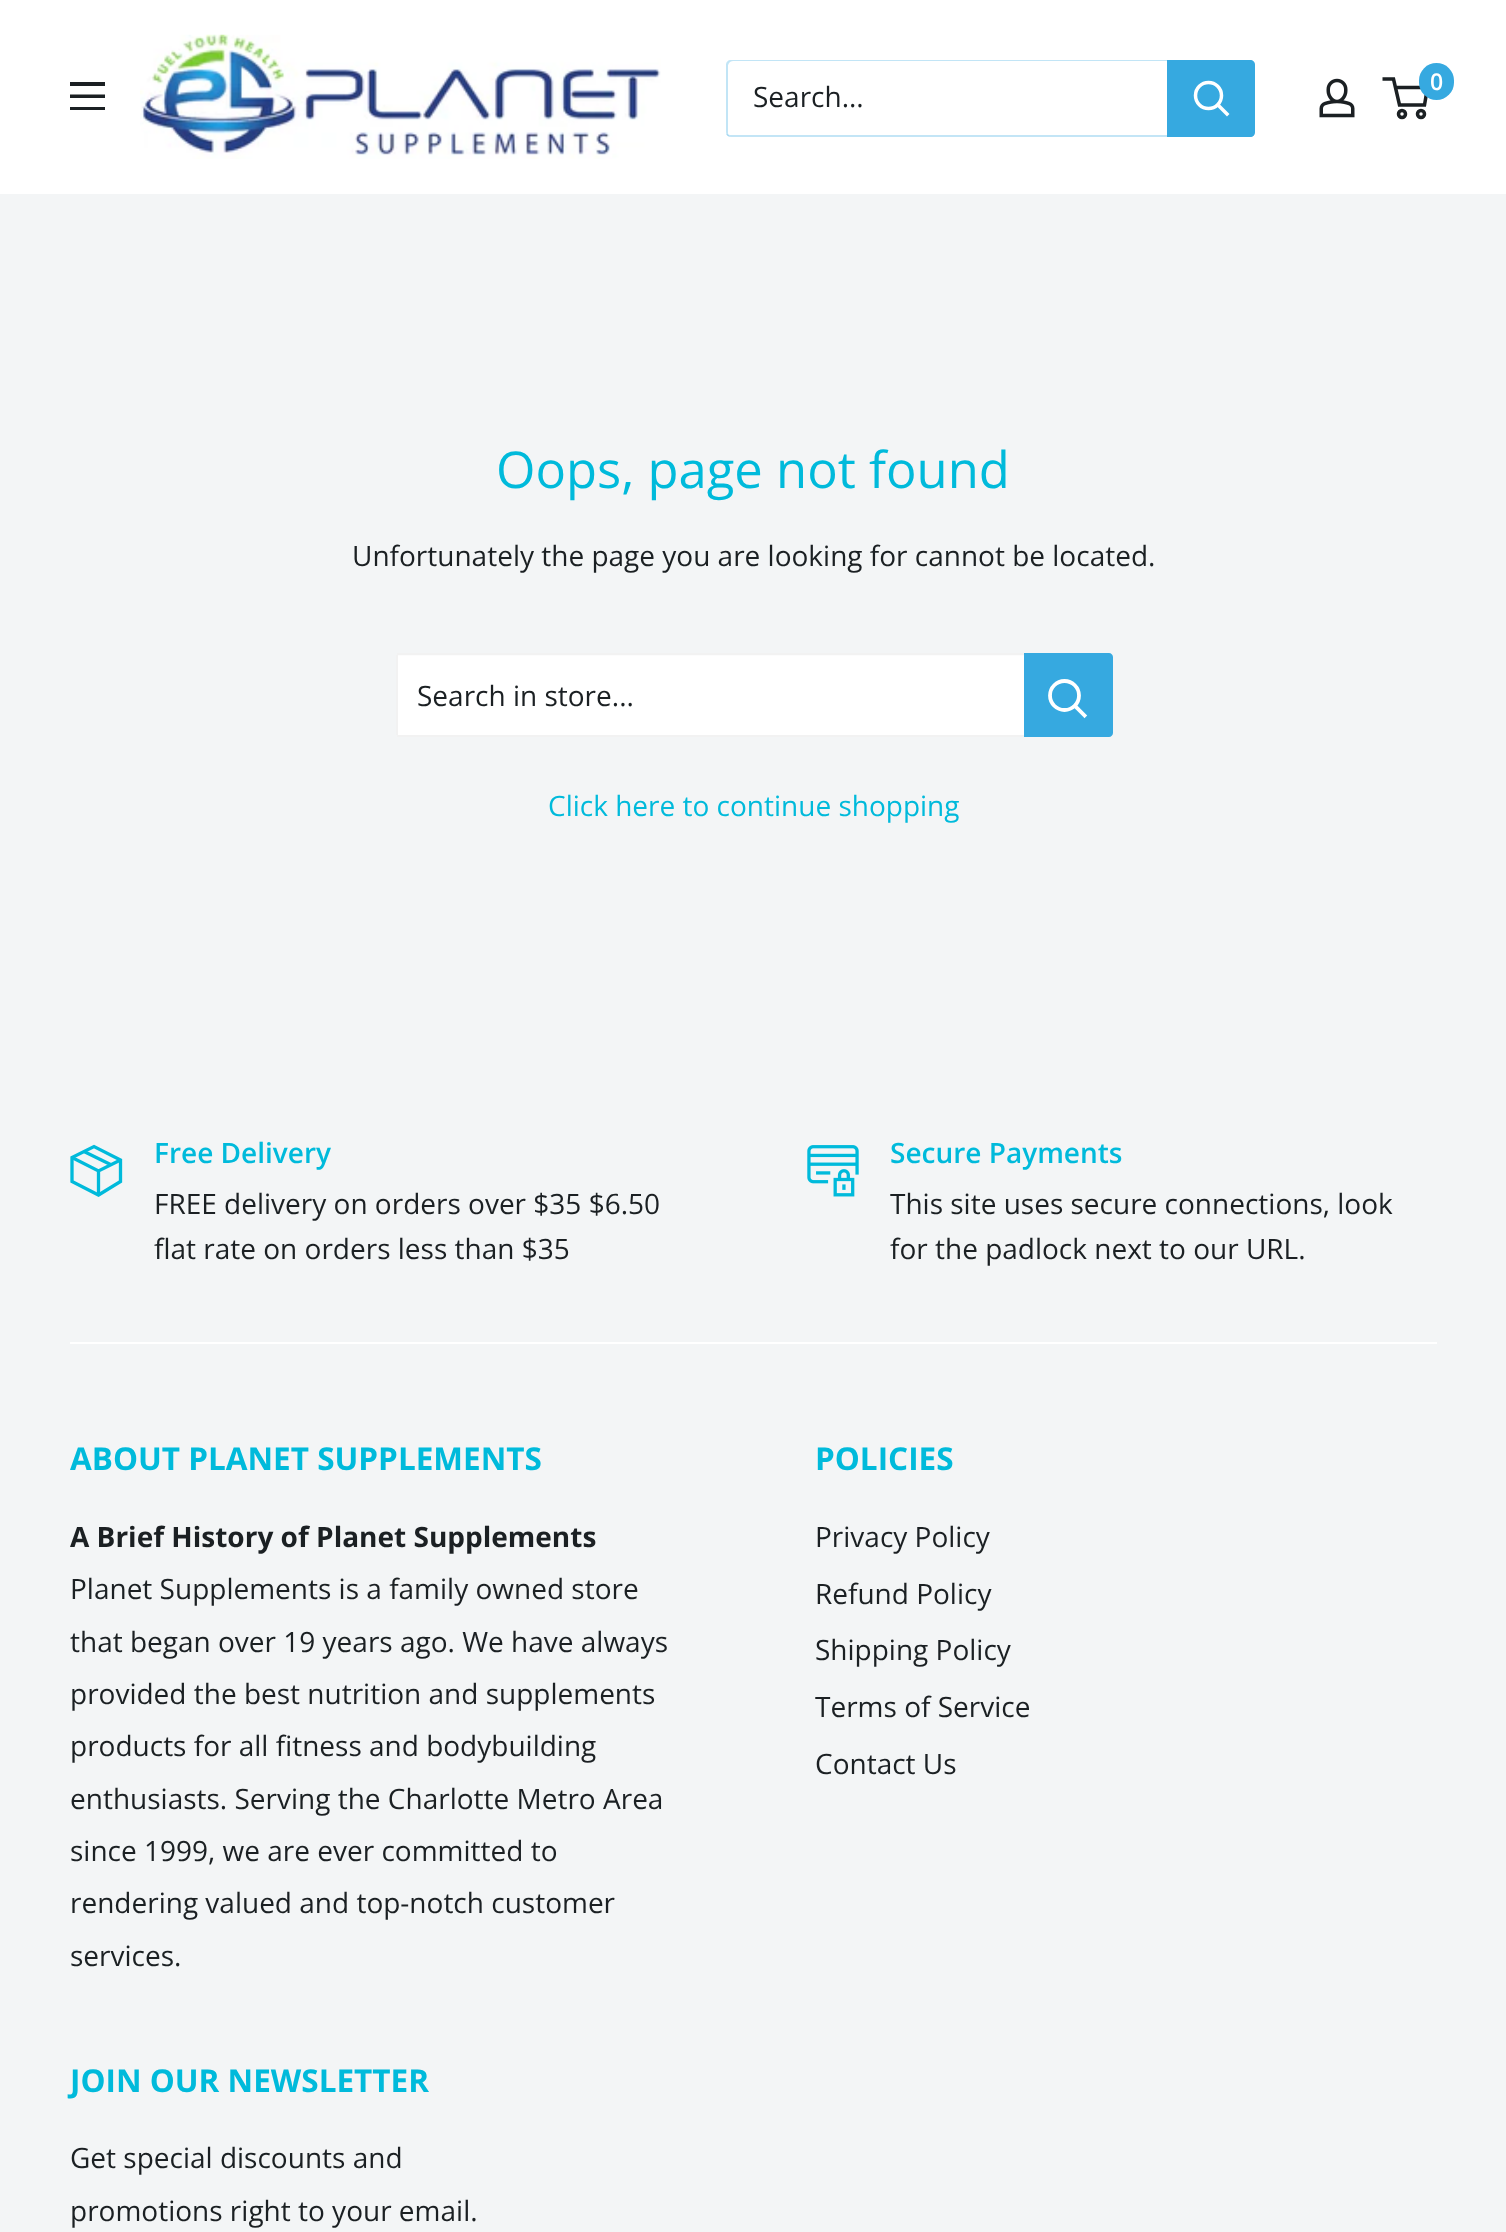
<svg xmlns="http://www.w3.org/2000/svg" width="1506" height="2232">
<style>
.a{font:28px Open Sans;fill:#1b2023}
.b{font:600 23px Open Sans;fill:#fff}
.c{font:50.75px Open Sans;fill:#00badb}
.d{font:28px Open Sans;fill:#00badb}
.e{font:600 28px Open Sans;fill:#00badb}
.f{font:bold 31.5px Open Sans;fill:#00badb}
.g{font:bold 28px Open Sans;fill:#1b2023}
</style>
<rect width="100%" height="100%" fill="#f3f5f6"/>
<path fill="#fff" d="M0 0h1506v194H0z"/>
<path fill="#1b2023" fill-rule="evenodd" d="M70 107h35v3h-35zm0-25h35v4h-35zm0 12.5h35v3.5h-35z"/>
<image href="1.png" x="140" y="34" width="521" height="125"/>
<path fill="#c3e5f6" d="M726 134c1 2 3 3 5 3h519c3 0 5-2 5-5v-67c0-2-1-3-2-4v2v67c0 2-2 5-5 5h-518c-1 0-3-1-4-1z"/>
<path fill="#36a9e04d" d="M733 61h518l3 1c-1-1-2-2-4-2h-519c-3 0-5 2-5 5v67c0 2 1 4 4 5c-1-1-2-2-2-4v-67c0-2 2-5 5-5z"/>
<path fill="#36a9e0" d="M1167 60h83c3 0 5 2 5 5v67c0 3-2 5-5 5h-83z"/>
<path fill="none" stroke="#fff" stroke-width="3.5" stroke-linecap="square" d="M1227 114l-9-9"/>
<circle fill="none" stroke="#fff" stroke-width="3.5" cx="1208.5" cy="95.5" r="13"/>
<image href="2.png" x="1319" y="78" width="36" height="40"/>
<circle fill="none" stroke="#1b2023" stroke-width="3.5" cx="1402" cy="114" r="3.5"/>
<circle fill="none" stroke="#1b2023" stroke-width="3.5" cx="1421" cy="114" r="3.5"/>
<path fill="none" stroke="#1b2023" stroke-width="3.5" d="M1395.5 87.5h32l-3 17.5h-25l-6-26h-11"/>
<rect fill="#36a9e0" x="1419" y="63" width="35" height="37" rx="17.5"/>
<path fill="#fff" d="M400 653h624v84h-624c-2 0-4-2-4-4v-76c0-2 2-4 4-4z"/>
<path fill="#fcfcfc" d="M399 656h625v-1h-625c-2 0-2 2-2 3c0-1 1-2 2-2z"/>
<path fill="#f2f2f2" d="M397 653h627v2H397z"/>
<path fill="#f2f2f2" d="M397 735h627v2H397z"/>
<path fill="#f2f2f2" d="M396 655h2v80H396z"/>
<path fill="#36a9e0" d="M1024 653h85c2 0 4 2 4 4v76c0 2-2 4-4 4h-85z"/>
<path fill="none" stroke="#fff" stroke-width="3.8" stroke-linecap="square" d="M1084.5 715.5l-9.5-9.5"/>
<circle fill="none" stroke="#fff" stroke-width="3.8" cx="1064.5" cy="695.5" r="14.5"/>
<path fill="none" stroke="#00badb" stroke-width="3.3" d="M84 1151.5l26.5 13m10-4.5l-22 11l-26.5-13.5m26.5 13.5v24"/>
<path fill="none" stroke="#00badb" stroke-width="3.3" stroke-linecap="square" d="M120.5 1160v21.5l-22 13.5l-26.5-13.5v-24l22-11z"/>
<image href="3.png" x="807" y="1145" width="52" height="52"/>
<path fill="#fff" d="M70 1342h1367v2H70z"/>
<text class="a" x="753" y="107">Search...</text>
<text class="b" x="1430" y="90">0</text>
<text class="c" x="496" y="488">Oops, page not found</text>
<text class="a" x="352" y="566">Unfortunately the page you are looking for cannot be located.</text>
<text class="a" x="417" y="706">Search in store...</text>
<text class="d" x="548" y="816">Click here to continue shopping</text>
<text class="e" x="154" y="1163">Free Delivery</text>
<text class="a" x="154" y="1214">FREE delivery on orders over $35 $6.50</text>
<text class="a" x="154" y="1259">flat rate on orders less than $35</text>
<text class="e" x="890" y="1163">Secure Payments</text>
<text class="a" x="890" y="1214">This site uses secure connections, look</text>
<text class="a" x="890" y="1259">for the padlock next to our URL.</text>
<text class="f" x="70" y="1470">ABOUT PLANET SUPPLEMENTS</text>
<text class="g" x="70" y="1547">A Brief History of Planet Supplements</text>
<text class="a" x="70" y="1599">Planet Supplements is a family owned store</text>
<text class="a" x="70" y="1652">that began over 19 years ago. We have always</text>
<text class="a" x="70" y="1704">provided the best nutrition and supplements</text>
<text class="a" x="70" y="1756">products for all fitness and bodybuilding</text>
<text class="a" x="70" y="1809">enthusiasts. Serving the Charlotte Metro Area</text>
<text class="a" x="70" y="1861">since 1999, we are ever committed to</text>
<text class="a" x="70" y="1913">rendering valued and top-notch customer</text>
<text class="a" x="70" y="1966">services.</text>
<text class="f" x="815" y="1470">POLICIES</text>
<text class="a" x="815" y="1547">Privacy Policy</text>
<text class="a" x="815" y="1604">Refund Policy</text>
<text class="a" x="815" y="1660">Shipping Policy</text>
<text class="a" x="815" y="1717">Terms of Service</text>
<text class="a" x="815" y="1774">Contact Us</text>
<text class="f" x="70" y="2092">JOIN OUR NEWSLETTER</text>
<text class="a" x="70" y="2168">Get special discounts and</text>
<text class="a" x="70" y="2221">promotions right to your email.</text>
</svg>
